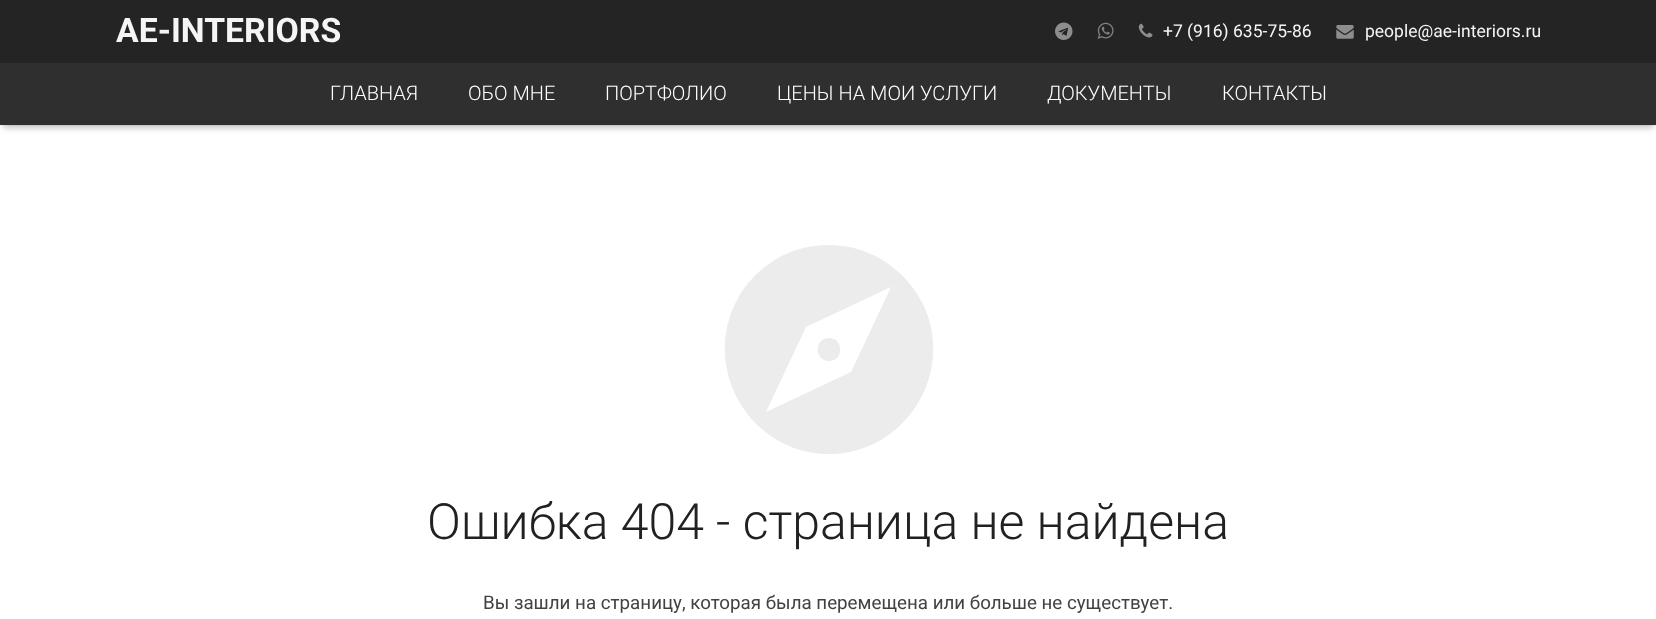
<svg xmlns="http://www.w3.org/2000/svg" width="1656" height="619">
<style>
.a{font:bold 33.75px Roboto;fill:#f5f5f5}
.b{font:17.5px Roboto;fill:#f5f5f5}
.c{font:300 20px Roboto;fill:#fff}
.d{font:300 50px Roboto;fill:#212121}
.e{font:18.75px Roboto;fill:#424242}
</style>
<rect width="100%" height="100%" fill="#fff"/>
<path fill="#242424" d="M0 0h1656v63H0z"/>
<image href="1.png" x="1055" y="22" width="18" height="18"/>
<image href="2.png" x="1097" y="22" width="17" height="17"/>
<image href="3.png" x="1138" y="23" width="15" height="15"/>
<image href="4.png" x="1336" y="25" width="18" height="14"/>
<path fill="#0000000d" filter="blur(0.5px)" d="M1 66h1654v60H1z"/>
<path fill="#00000038" filter="blur(3px)" d="M3 70h1651v58H3z"/>
<path fill="#302f30" d="M0 63h1656v62H0z"/>
<path fill="#ececec" d="M829 338c-15 0-15 23 0 23c15 0 15-23 0-23zm0-93c-23 0-45 7-63 21c-13 10-24 23-31 38c-33 69 18 150 94 150c76 0 127-81 94-150c-8-15-18-28-32-38c-18-14-40-21-62-21zm22 127l-85 40l40-85l85-40z"/>
<text class="a" x="116" y="42">AE-INTERIORS</text>
<text class="b" x="1163" y="37">+7 (916) 635-75-86</text>
<text class="b" x="1365" y="37">people@ae-interiors.ru</text>
<text class="c" x="330" y="100">ГЛАВНАЯ</text>
<text class="c" x="468" y="100">ОБО МНЕ</text>
<text class="c" x="605" y="100">ПОРТФОЛИО</text>
<text class="c" x="777" y="100">ЦЕНЫ НА МОИ УСЛУГИ</text>
<text class="c" x="1047" y="100">ДОКУМЕНТЫ</text>
<text class="c" x="1222" y="100">КОНТАКТЫ</text>
<text class="d" x="427" y="539">Ошибка 404 - страница не найдена</text>
<text class="e" x="483" y="609">Вы зашли на страницу, которая была перемещена или больше не существует.</text>
</svg>
